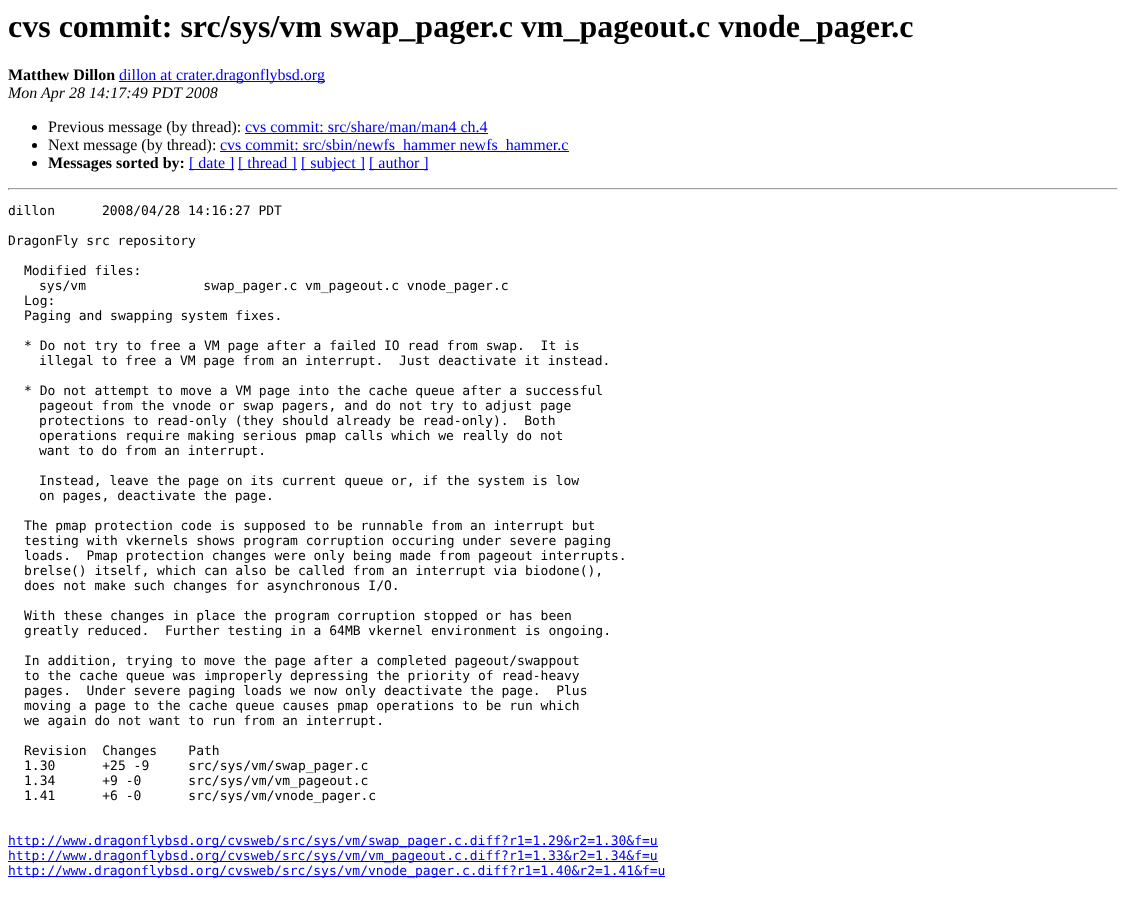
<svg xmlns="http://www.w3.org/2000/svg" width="1126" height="906">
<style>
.a{font:bold 32px Liberation Serif;fill:#000}
.b{font:bold 16px Liberation Serif;fill:#000}
.c{font:16px Liberation Serif;fill:#00e}
.d{font:italic 16px Liberation Serif;fill:#000}
.e{font:16px Liberation Serif;fill:#000}
.f{font:13px DejaVu Sans Mono;fill:#000}
.g{font:13px DejaVu Sans Mono;fill:#00e}
</style>
<rect width="100%" height="100%" fill="#fff"/>
<path fill="#00e" d="M119 81h206v1H119z"/>
<circle fill="#000" cx="34.5" cy="127.5" r="2.5"/>
<path fill="#00e" d="M245 133h243v1H245z"/>
<circle fill="#000" cx="34.5" cy="145.5" r="2.5"/>
<path fill="#00e" d="M220 151h349v1H220z"/>
<circle fill="#000" cx="34.5" cy="163.5" r="2.5"/>
<path fill="#00e" d="M189 169h45v1H189z"/>
<path fill="#00e" d="M238 169h59v1H238z"/>
<path fill="#00e" d="M301 169h64v1H301z"/>
<path fill="#00e" d="M369 169h59v1H369z"/>
<path fill="#9f9f9f" d="M8 188h1110v1H8z"/>
<path fill="#eee" d="M1117 188h1v2H1117z"/>
<path fill="#eee" d="M8 189h1110v1H8z"/>
<path fill="#9f9f9f" d="M8 188h1v2H8z"/>
<path fill="#00e" d="M8 846h650v1H8z"/>
<path fill="#00e" d="M8 861h650v1H8z"/>
<path fill="#00e" d="M8 876h657v1H8z"/>
<text class="a" x="8" y="37">cvs commit: src/sys/vm swap_pager.c vm_pageout.c vnode_pager.c</text>
<text class="b" x="8" y="80">Matthew Dillon</text>
<text class="c" x="119" y="80">dillon at crater.dragonflybsd.org</text>
<text class="d" x="8" y="98">Mon Apr 28 14:17:49 PDT 2008</text>
<text class="e" x="48" y="132">Previous message (by thread):</text>
<text class="c" x="245" y="132">cvs commit: src/share/man/man4 ch.4</text>
<text class="e" x="48" y="150">Next message (by thread):</text>
<text class="c" x="220" y="150">cvs commit: src/sbin/newfs_hammer newfs_hammer.c</text>
<text class="b" x="48" y="168">Messages sorted by:</text>
<text class="c" x="189" y="168">[ date ]</text>
<text class="c" x="238" y="168">[ thread ]</text>
<text class="c" x="301" y="168">[ subject ]</text>
<text class="c" x="369" y="168">[ author ]</text>
<text class="f" xml:space="preserve" x="8" y="215">dillon      2008/04/28 14:16:27 PDT</text>
<text class="f" x="8" y="245">DragonFly src repository</text>
<text class="f" x="24" y="275">Modified files:</text>
<text class="f" xml:space="preserve" x="39" y="290">sys/vm               swap_pager.c vm_pageout.c vnode_pager.c</text>
<text class="f" x="24" y="305">Log:</text>
<text class="f" x="24" y="320">Paging and swapping system fixes.</text>
<text class="f" xml:space="preserve" x="24" y="350">* Do not try to free a VM page after a failed IO read from swap.  It is</text>
<text class="f" xml:space="preserve" x="39" y="365">illegal to free a VM page from an interrupt.  Just deactivate it instead.</text>
<text class="f" x="24" y="395">* Do not attempt to move a VM page into the cache queue after a successful</text>
<text class="f" x="39" y="410">pageout from the vnode or swap pagers, and do not try to adjust page</text>
<text class="f" xml:space="preserve" x="39" y="425">protections to read-only (they should already be read-only).  Both</text>
<text class="f" x="39" y="440">operations require making serious pmap calls which we really do not</text>
<text class="f" x="39" y="455">want to do from an interrupt.</text>
<text class="f" x="39" y="485">Instead, leave the page on its current queue or, if the system is low</text>
<text class="f" x="39" y="500">on pages, deactivate the page.</text>
<text class="f" x="24" y="530">The pmap protection code is supposed to be runnable from an interrupt but</text>
<text class="f" x="24" y="545">testing with vkernels shows program corruption occuring under severe paging</text>
<text class="f" xml:space="preserve" x="24" y="560">loads.  Pmap protection changes were only being made from pageout interrupts.</text>
<text class="f" x="24" y="575">brelse() itself, which can also be called from an interrupt via biodone(),</text>
<text class="f" x="24" y="590">does not make such changes for asynchronous I/O.</text>
<text class="f" x="24" y="620">With these changes in place the program corruption stopped or has been</text>
<text class="f" xml:space="preserve" x="24" y="635">greatly reduced.  Further testing in a 64MB vkernel environment is ongoing.</text>
<text class="f" x="24" y="665">In addition, trying to move the page after a completed pageout/swappout</text>
<text class="f" x="24" y="680">to the cache queue was improperly depressing the priority of read-heavy</text>
<text class="f" xml:space="preserve" x="24" y="695">pages.  Under severe paging loads we now only deactivate the page.  Plus</text>
<text class="f" x="24" y="710">moving a page to the cache queue causes pmap operations to be run which</text>
<text class="f" x="24" y="725">we again do not want to run from an interrupt.</text>
<text class="f" xml:space="preserve" x="24" y="755">Revision  Changes    Path</text>
<text class="f" xml:space="preserve" x="24" y="770">1.30      +25 -9     src/sys/vm/swap_pager.c</text>
<text class="f" xml:space="preserve" x="24" y="785">1.34      +9 -0      src/sys/vm/vm_pageout.c</text>
<text class="f" xml:space="preserve" x="24" y="800">1.41      +6 -0      src/sys/vm/vnode_pager.c</text>
<text class="g" x="8" y="845">http://www.dragonflybsd.org/cvsweb/src/sys/vm/swap_pager.c.diff?r1=1.29&amp;r2=1.30&amp;f=u</text>
<text class="g" x="8" y="860">http://www.dragonflybsd.org/cvsweb/src/sys/vm/vm_pageout.c.diff?r1=1.33&amp;r2=1.34&amp;f=u</text>
<text class="g" x="8" y="875">http://www.dragonflybsd.org/cvsweb/src/sys/vm/vnode_pager.c.diff?r1=1.40&amp;r2=1.41&amp;f=u</text>
</svg>
